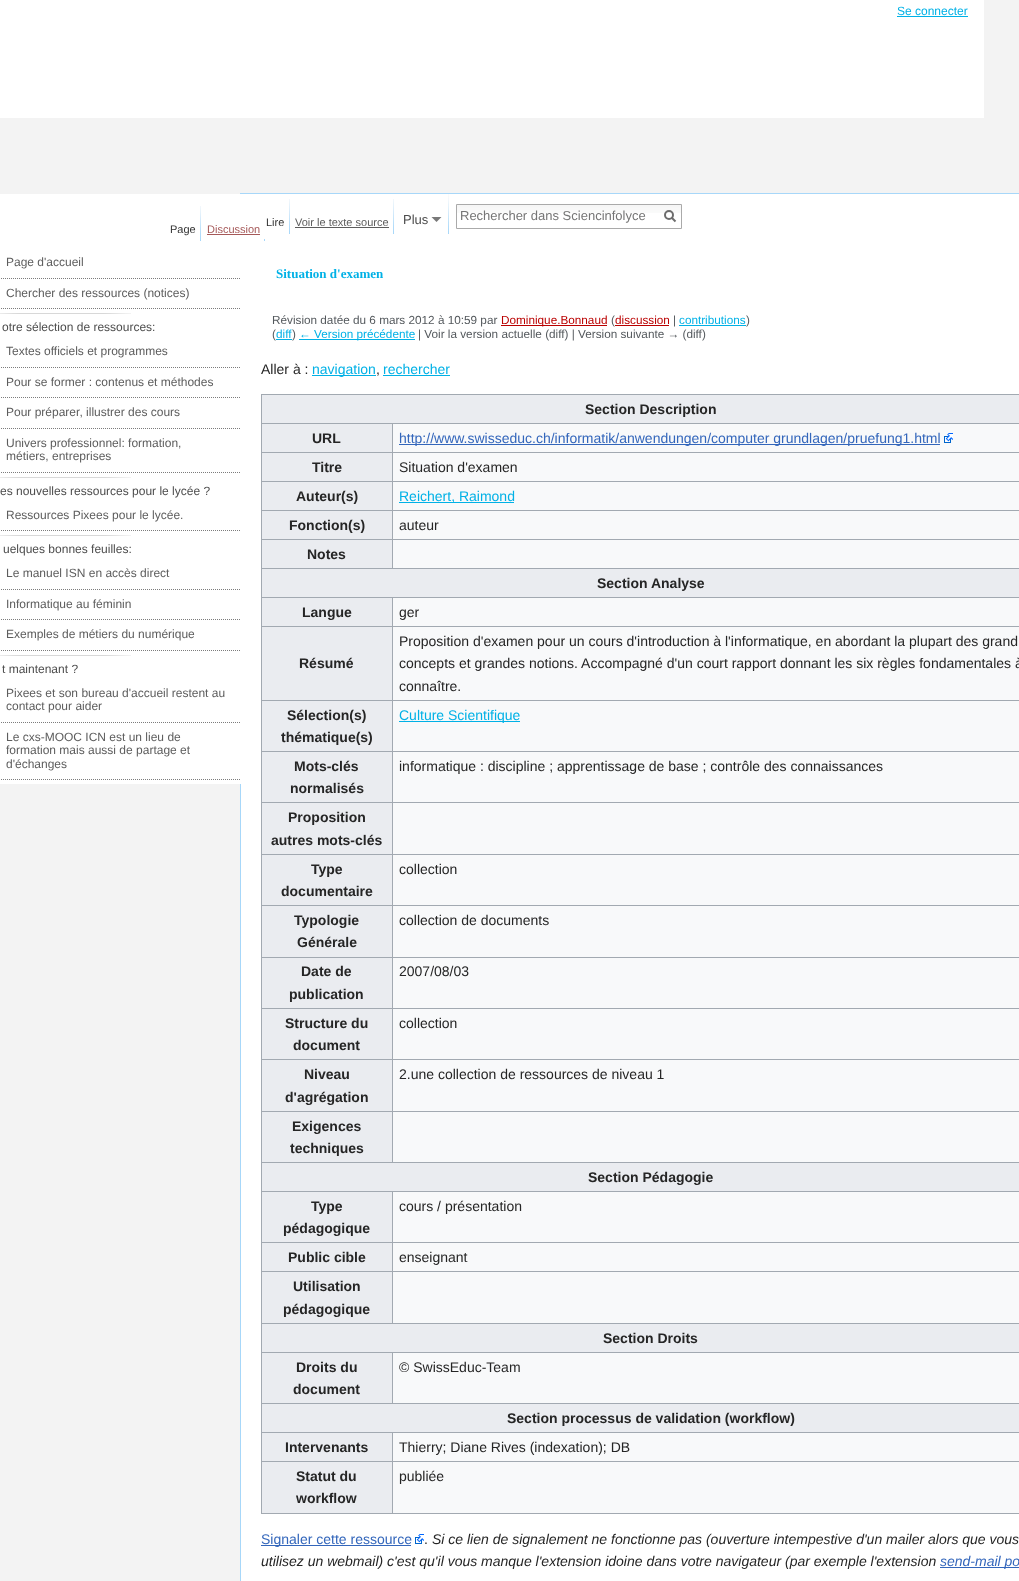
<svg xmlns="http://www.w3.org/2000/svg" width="1019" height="1581">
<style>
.a{font:12px Liberation Sans;fill:#00b1e6}
.b{font:11px Liberation Sans;fill:#333}
.c{font:11px Liberation Sans;fill:#5d5d5d}
.d{font:13px Liberation Sans;fill:#4d4d4d}
.e{font:13px Liberation Sans;fill:#757575}
.f{font:11px Liberation Sans;fill:#a55858}
.g{font:12px Liberation Sans;fill:#5d5d5d}
.h{font:12px Liberation Sans;fill:#4d4d4d}
.i{font:bold 13px Liberation Serif;fill:#00b1e6}
.j{font:11.75px Liberation Sans;fill:#54595d}
.k{font:11.75px Liberation Sans;fill:#ba0000}
.l{font:11.75px Liberation Sans;fill:#00b1e6}
.m{font:14px Liberation Sans;fill:#252525}
.n{font:14px Liberation Sans;fill:#00b1e6}
.o{font:bold 14px Liberation Sans;fill:#252525}
.p{font:14px Liberation Sans;fill:#36b}
.q{font:italic 14px Liberation Sans;fill:#252525}
.r{font:italic 14px Liberation Sans;fill:#36b}
</style>
<rect width="100%" height="100%" fill="#f3f3f3"/>
<path fill="#fff" d="M0 0h984v118H0z"/>
<path fill="#00b1e6" d="M897 16h71v1H897z"/>
<path fill="#fff" d="M241 194h778v1387H241z"/>
<image href="1.png" x="289" y="199" width="1" height="35"/>
<image href="1.png" x="393" y="199" width="1" height="35"/>
<path fill="#5d5d5d" d="M295 227h94v1H295z"/>
<image href="2.png" x="448" y="194" width="1" height="40"/>
<path fill="#797979" d="M441.5 217l-5 5l-5-5z"/>
<image href="3.png" x="457" y="205" width="224" height="8"/>
<path fill="none" stroke="#aaa" d="M456.5 204.5h225v24H456.5z"/>
<path fill="none" stroke="#6c6c6c" stroke-width="2" d="M675.5 221.5l-4-4"/>
<circle fill="none" stroke="#6c6c6c" stroke-width="2" cx="669" cy="215" r="4"/>
<path fill="#a7d7f9" d="M240 193h779v1H240z"/>
<path fill="#a7d7f9" d="M240 193h1v1388H240z"/>
<path fill="#fff" d="M0 194h241v590H0z"/>
<image href="1.png" x="200" y="206" width="1" height="35"/>
<image href="4.png" x="264" y="239" width="1" height="2"/>
<path fill="#a55858" d="M207 234h53v1H207z"/>
<path fill="none" stroke="#7c7c7c" stroke-dasharray="1 1" d="M-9 278.5h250"/>
<path fill="none" stroke="#7c7c7c" stroke-dasharray="1 1" d="M-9 308.5h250"/>
<image href="5.png" x="0" y="313" width="131" height="1"/>
<path fill="none" stroke="#7c7c7c" stroke-dasharray="1 1" d="M-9 367.5h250"/>
<path fill="none" stroke="#7c7c7c" stroke-dasharray="1 1" d="M-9 397.5h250"/>
<path fill="none" stroke="#7c7c7c" stroke-dasharray="1 1" d="M-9 428.5h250"/>
<path fill="none" stroke="#7c7c7c" stroke-dasharray="1 1" d="M-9 472.5h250"/>
<image href="5.png" x="0" y="477" width="131" height="1"/>
<path fill="none" stroke="#7c7c7c" stroke-dasharray="1 1" d="M-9 530.5h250"/>
<image href="5.png" x="0" y="535" width="131" height="1"/>
<path fill="none" stroke="#7c7c7c" stroke-dasharray="1 1" d="M-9 589.5h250"/>
<path fill="none" stroke="#7c7c7c" stroke-dasharray="1 1" d="M-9 619.5h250"/>
<path fill="none" stroke="#7c7c7c" stroke-dasharray="1 1" d="M-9 650.5h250"/>
<image href="5.png" x="0" y="655" width="131" height="1"/>
<path fill="none" stroke="#7c7c7c" stroke-dasharray="1 1" d="M-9 722.5h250"/>
<path fill="none" stroke="#7c7c7c" stroke-dasharray="1 1" d="M-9 779.5h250"/>
<path fill="#ba0000" d="M501 325h106v1H501z"/>
<path fill="#ba0000" d="M615 325h54v1H615z"/>
<path fill="#00b1e6" d="M679 325h67v1H679z"/>
<path fill="#00b1e6" d="M299 339h116v1H299z"/>
<path fill="#00b1e6" d="M312 375h64v1H312z"/>
<path fill="#00b1e6" d="M383 375h67v1H383z"/>
<path fill="#f8f9fa" d="M393 424h626v1089H393z"/>
<path fill="#a2a9b1" d="M261 394h758v1H261z"/>
<path fill="#a2a9b1" d="M261 1513h758v1H261z"/>
<path fill="#a2a9b1" d="M261 394h1v1120H261z"/>
<path fill="#eaecf0" d="M262 395h757v28H262z"/>
<path fill="#eaecf0" d="M262 424h130v28H262z"/>
<path fill="#a2a9b1" d="M392 423h627v1H392z"/>
<path fill="#a2a9b1" d="M392 452h627v1H392z"/>
<path fill="#a2a9b1" d="M392 481h627v1H392z"/>
<path fill="#a2a9b1" d="M392 510h627v1H392z"/>
<path fill="#a2a9b1" d="M392 539h627v1H392z"/>
<path fill="#a2a9b1" d="M261 568h758v1H261z"/>
<path fill="#a2a9b1" d="M392 539h1v30H392z"/>
<path fill="#a2a9b1" d="M261 539h132v1H261z"/>
<path fill="#a2a9b1" d="M392 510h1v30H392z"/>
<path fill="#a2a9b1" d="M261 510h132v1H261z"/>
<path fill="#a2a9b1" d="M392 481h1v30H392z"/>
<path fill="#a2a9b1" d="M261 481h132v1H261z"/>
<path fill="#a2a9b1" d="M392 452h1v30H392z"/>
<path fill="#a2a9b1" d="M261 452h132v1H261z"/>
<path fill="#a2a9b1" d="M392 423h1v30H392z"/>
<path fill="#a2a9b1" d="M261 423h132v1H261z"/>
<path fill="#36b" d="M399 444h541v1H399z"/>
<image href="6.png" x="944" y="433" width="9" height="10"/>
<path fill="#eaecf0" d="M262 453h130v28H262z"/>
<path fill="#eaecf0" d="M262 482h130v28H262z"/>
<path fill="#00b1e6" d="M399 502h115v1H399z"/>
<path fill="#eaecf0" d="M262 511h130v28H262z"/>
<path fill="#eaecf0" d="M262 540h130v28H262z"/>
<path fill="#eaecf0" d="M262 569h757v28H262z"/>
<path fill="#eaecf0" d="M262 598h130v28H262z"/>
<path fill="#a2a9b1" d="M392 597h627v1H392z"/>
<path fill="#a2a9b1" d="M392 626h627v1H392z"/>
<path fill="#a2a9b1" d="M392 700h627v1H392z"/>
<path fill="#a2a9b1" d="M392 751h627v1H392z"/>
<path fill="#a2a9b1" d="M392 802h627v1H392z"/>
<path fill="#a2a9b1" d="M392 854h627v1H392z"/>
<path fill="#a2a9b1" d="M392 905h627v1H392z"/>
<path fill="#a2a9b1" d="M392 957h627v1H392z"/>
<path fill="#a2a9b1" d="M392 1008h627v1H392z"/>
<path fill="#a2a9b1" d="M392 1059h627v1H392z"/>
<path fill="#a2a9b1" d="M392 1111h627v1H392z"/>
<path fill="#a2a9b1" d="M261 1162h758v1H261z"/>
<path fill="#a2a9b1" d="M392 1111h1v52H392z"/>
<path fill="#a2a9b1" d="M261 1111h132v1H261z"/>
<path fill="#a2a9b1" d="M392 1059h1v53H392z"/>
<path fill="#a2a9b1" d="M261 1059h132v1H261z"/>
<path fill="#a2a9b1" d="M392 1008h1v52H392z"/>
<path fill="#a2a9b1" d="M261 1008h132v1H261z"/>
<path fill="#a2a9b1" d="M392 957h1v52H392z"/>
<path fill="#a2a9b1" d="M261 957h132v1H261z"/>
<path fill="#a2a9b1" d="M392 905h1v53H392z"/>
<path fill="#a2a9b1" d="M261 905h132v1H261z"/>
<path fill="#a2a9b1" d="M392 854h1v52H392z"/>
<path fill="#a2a9b1" d="M261 854h132v1H261z"/>
<path fill="#a2a9b1" d="M392 802h1v53H392z"/>
<path fill="#a2a9b1" d="M261 802h132v1H261z"/>
<path fill="#a2a9b1" d="M392 751h1v52H392z"/>
<path fill="#a2a9b1" d="M261 751h132v1H261z"/>
<path fill="#a2a9b1" d="M392 700h1v52H392z"/>
<path fill="#a2a9b1" d="M261 700h132v1H261z"/>
<path fill="#a2a9b1" d="M392 626h1v75H392z"/>
<path fill="#a2a9b1" d="M261 626h132v1H261z"/>
<path fill="#a2a9b1" d="M392 597h1v30H392z"/>
<path fill="#a2a9b1" d="M261 597h132v1H261z"/>
<path fill="#eaecf0" d="M262 627h130v73H262z"/>
<path fill="#eaecf0" d="M262 701h130v50H262z"/>
<path fill="#00b1e6" d="M399 721h121v1H399z"/>
<path fill="#eaecf0" d="M262 752h130v50H262z"/>
<path fill="#eaecf0" d="M262 803h130v51H262z"/>
<path fill="#eaecf0" d="M262 855h130v50H262z"/>
<path fill="#eaecf0" d="M262 906h130v51H262z"/>
<path fill="#eaecf0" d="M262 958h130v50H262z"/>
<path fill="#eaecf0" d="M262 1009h130v50H262z"/>
<path fill="#eaecf0" d="M262 1060h130v51H262z"/>
<path fill="#eaecf0" d="M262 1112h130v50H262z"/>
<path fill="#eaecf0" d="M262 1163h757v28H262z"/>
<path fill="#eaecf0" d="M262 1192h130v50H262z"/>
<path fill="#a2a9b1" d="M392 1191h627v1H392z"/>
<path fill="#a2a9b1" d="M392 1242h627v1H392z"/>
<path fill="#a2a9b1" d="M392 1271h627v1H392z"/>
<path fill="#a2a9b1" d="M261 1323h758v1H261z"/>
<path fill="#a2a9b1" d="M392 1271h1v53H392z"/>
<path fill="#a2a9b1" d="M261 1271h132v1H261z"/>
<path fill="#a2a9b1" d="M392 1242h1v30H392z"/>
<path fill="#a2a9b1" d="M261 1242h132v1H261z"/>
<path fill="#a2a9b1" d="M392 1191h1v52H392z"/>
<path fill="#a2a9b1" d="M261 1191h132v1H261z"/>
<path fill="#eaecf0" d="M262 1243h130v28H262z"/>
<path fill="#eaecf0" d="M262 1272h130v51H262z"/>
<path fill="#eaecf0" d="M262 1324h757v28H262z"/>
<path fill="#eaecf0" d="M262 1353h130v50H262z"/>
<path fill="#a2a9b1" d="M392 1352h627v1H392z"/>
<path fill="#a2a9b1" d="M261 1403h758v1H261z"/>
<path fill="#a2a9b1" d="M392 1352h1v52H392z"/>
<path fill="#a2a9b1" d="M261 1352h132v1H261z"/>
<path fill="#eaecf0" d="M262 1404h757v28H262z"/>
<path fill="#eaecf0" d="M262 1433h130v28H262z"/>
<path fill="#a2a9b1" d="M392 1432h627v1H392z"/>
<path fill="#a2a9b1" d="M392 1461h627v1H392z"/>
<path fill="#a2a9b1" d="M392 1461h1v53H392z"/>
<path fill="#a2a9b1" d="M261 1461h132v1H261z"/>
<path fill="#a2a9b1" d="M392 1432h1v30H392z"/>
<path fill="#a2a9b1" d="M261 1432h132v1H261z"/>
<path fill="#eaecf0" d="M262 1462h130v51H262z"/>
<path fill="#36b" d="M261 1545h150v1H261z"/>
<image href="7.png" x="415" y="1534" width="9" height="10"/>
<path fill="#36b" d="M940 1567h79v1H940z"/>
<text class="a" x="897" y="15">Se connecter</text>
<text class="b" x="266" y="226">Lire</text>
<text class="c" x="295" y="226">Voir le texte source</text>
<text class="d" x="403" y="224">Plus</text>
<text class="e" x="460" y="220">Rechercher dans Sciencinfolyce</text>
<text class="b" x="170" y="233">Page</text>
<text class="f" x="207" y="233">Discussion</text>
<text class="g" x="6" y="266">Page d'accueil</text>
<text class="g" x="6" y="297">Chercher des ressources (notices)</text>
<text class="h" x="2" y="331">otre sélection de ressources:</text>
<text class="g" x="6" y="355">Textes officiels et programmes</text>
<text class="g" x="6" y="386">Pour se former : contenus et méthodes</text>
<text class="g" x="6" y="416">Pour préparer, illustrer des cours</text>
<text class="g" x="6" y="447">Univers professionnel: formation,</text>
<text class="g" x="6" y="460">métiers, entreprises</text>
<text class="h" x="0" y="495">es nouvelles ressources pour le lycée ?</text>
<text class="g" x="6" y="519">Ressources Pixees pour le lycée.</text>
<text class="h" x="3" y="553">uelques bonnes feuilles:</text>
<text class="g" x="6" y="577">Le manuel ISN en accès direct</text>
<text class="g" x="6" y="608">Informatique au féminin</text>
<text class="g" x="6" y="638">Exemples de métiers du numérique</text>
<text class="h" x="2" y="673">t maintenant ?</text>
<text class="g" x="6" y="697">Pixees et son bureau d'accueil restent au</text>
<text class="g" x="6" y="710">contact pour aider</text>
<text class="g" x="6" y="741">Le cxs-MOOC ICN est un lieu de</text>
<text class="g" x="6" y="754">formation mais aussi de partage et</text>
<text class="g" x="6" y="768">d'échanges</text>
<text class="i" x="276" y="278">Situation d'examen</text>
<text class="j" x="272" y="324">Révision datée du 6 mars 2012 à 10:59 par</text>
<text class="k" x="501" y="324">Dominique.Bonnaud</text>
<text class="j" x="611" y="324">(</text>
<text class="k" x="615" y="324">discussion</text>
<text class="j" x="673" y="324">|</text>
<text class="l" x="679" y="324">contributions</text>
<text class="j" x="746" y="324">)</text>
<text class="j" x="272" y="338">(</text>
<text class="l" x="276" y="338">diff</text>
<path fill="#00b1e6" d="M276 339h16v1H276z"/>
<text class="j" x="292" y="338">)</text>
<text class="l" x="299" y="338">← Version précédente</text>
<text class="j" x="418" y="338">| Voir la version actuelle (diff) | Version suivante → (diff)</text>
<text class="m" x="261" y="374">Aller à :</text>
<text class="n" x="312" y="374">navigation</text>
<text class="m" x="376" y="374">,</text>
<text class="n" x="383" y="374">rechercher</text>
<text class="o" x="585" y="414">Section Description</text>
<text class="o" x="312" y="443">URL</text>
<text class="p" x="399" y="443">http://www.swisseduc.ch/informatik/anwendungen/computer grundlagen/pruefung1.html</text>
<text class="o" x="312" y="472">Titre</text>
<text class="m" x="399" y="472">Situation d'examen</text>
<text class="o" x="296" y="501">Auteur(s)</text>
<text class="n" x="399" y="501">Reichert, Raimond</text>
<text class="o" x="289" y="530">Fonction(s)</text>
<text class="m" x="399" y="530">auteur</text>
<text class="o" x="307" y="559">Notes</text>
<text class="o" x="597" y="588">Section Analyse</text>
<text class="o" x="302" y="617">Langue</text>
<text class="m" x="399" y="617">ger</text>
<text class="o" x="299" y="668">Résumé</text>
<text class="m" x="399" y="646">Proposition d'examen pour un cours d'introduction à l'informatique, en abordant la plupart des grand</text>
<text class="m" x="399" y="668">concepts et grandes notions. Accompagné d'un court rapport donnant les six règles fondamentales à</text>
<text class="m" x="399" y="691">connaître.</text>
<text class="o" x="287" y="720">Sélection(s)</text>
<text class="o" x="281" y="742">thématique(s)</text>
<text class="n" x="399" y="720">Culture Scientifique</text>
<text class="o" x="294" y="771">Mots-clés</text>
<text class="o" x="290" y="793">normalisés</text>
<text class="m" x="399" y="771">informatique : discipline ; apprentissage de base ; contrôle des connaissances</text>
<text class="o" x="288" y="822">Proposition</text>
<text class="o" x="271" y="845">autres mots-clés</text>
<text class="o" x="311" y="874">Type</text>
<text class="o" x="281" y="896">documentaire</text>
<text class="m" x="399" y="874">collection</text>
<text class="o" x="294" y="925">Typologie</text>
<text class="o" x="297" y="947">Générale</text>
<text class="m" x="399" y="925">collection de documents</text>
<text class="o" x="301" y="976">Date de</text>
<text class="o" x="289" y="999">publication</text>
<text class="m" x="399" y="976">2007/08/03</text>
<text class="o" x="285" y="1028">Structure du</text>
<text class="o" x="293" y="1050">document</text>
<text class="m" x="399" y="1028">collection</text>
<text class="o" x="304" y="1079">Niveau</text>
<text class="o" x="285" y="1102">d'agrégation</text>
<text class="m" x="399" y="1079">2.une collection de ressources de niveau 1</text>
<text class="o" x="292" y="1131">Exigences</text>
<text class="o" x="290" y="1153">techniques</text>
<text class="o" x="588" y="1182">Section Pédagogie</text>
<text class="o" x="311" y="1211">Type</text>
<text class="o" x="283" y="1233">pédagogique</text>
<text class="m" x="399" y="1211">cours / présentation</text>
<text class="o" x="288" y="1262">Public cible</text>
<text class="m" x="399" y="1262">enseignant</text>
<text class="o" x="293" y="1291">Utilisation</text>
<text class="o" x="283" y="1314">pédagogique</text>
<text class="o" x="603" y="1343">Section Droits</text>
<text class="o" x="296" y="1372">Droits du</text>
<text class="o" x="293" y="1394">document</text>
<text class="m" x="399" y="1372">© SwissEduc-Team</text>
<text class="o" x="507" y="1423">Section processus de validation (workflow)</text>
<text class="o" x="285" y="1452">Intervenants</text>
<text class="m" x="399" y="1452">Thierry; Diane Rives (indexation); DB</text>
<text class="o" x="296" y="1481">Statut du</text>
<text class="o" x="296" y="1503">workflow</text>
<text class="m" x="399" y="1481">publiée</text>
<text class="p" x="261" y="1544">Signaler cette ressource</text>
<text class="m" x="424" y="1544">.</text>
<text class="q" x="432" y="1544">Si ce lien de signalement ne fonctionne pas (ouverture intempestive d'un mailer alors que vous</text>
<text class="q" x="261" y="1566">utilisez un webmail) c'est qu'il vous manque l'extension idoine dans votre navigateur (par exemple l'extension</text>
<text class="r" x="940" y="1566">send-mail po</text>
</svg>
